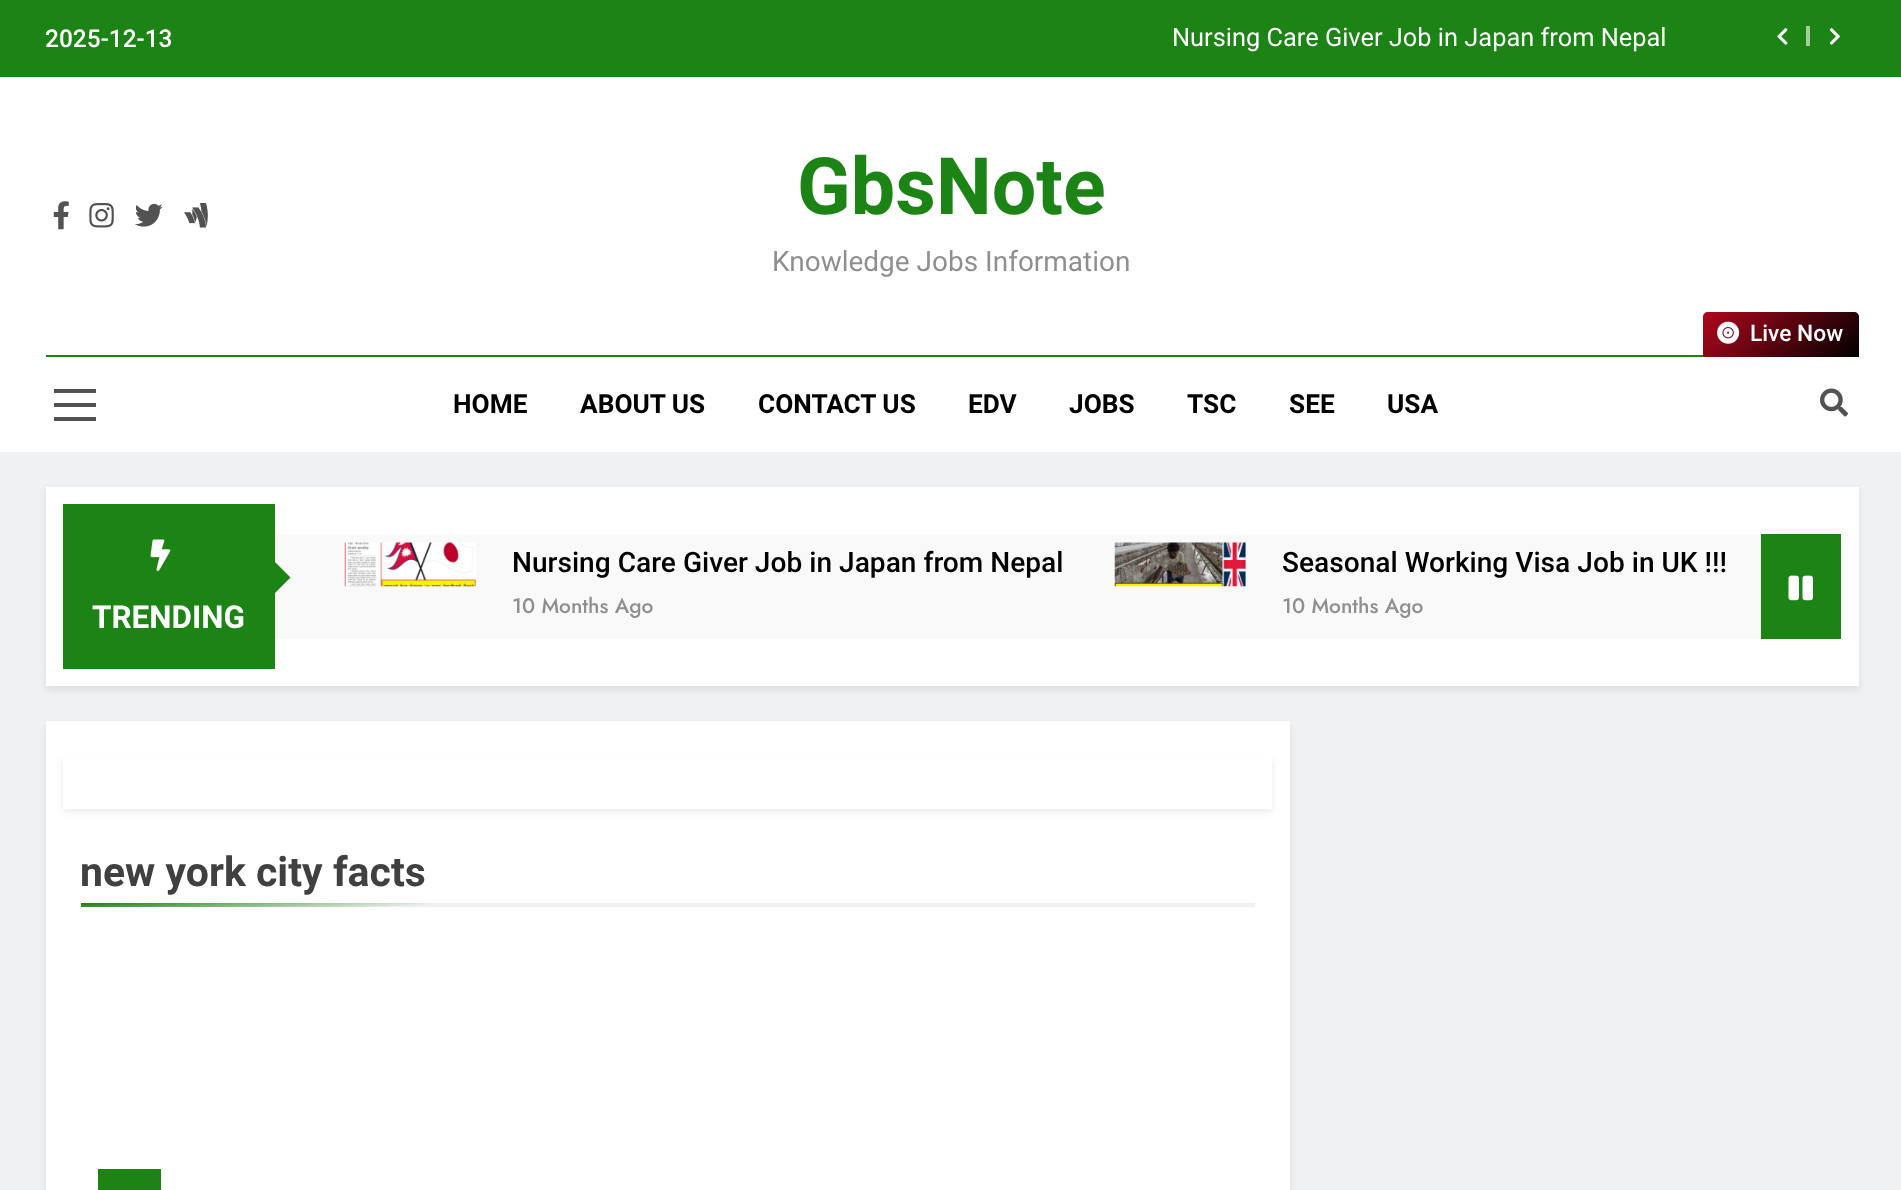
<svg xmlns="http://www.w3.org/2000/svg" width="1901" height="1190">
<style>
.a{font:500 24.5px Roboto;fill:#fff}
.b{font:25.4px Roboto;fill:#fff}
.c{font:bold 79px Roboto;fill:#1b8415}
.d{font:28px Roboto;fill:#8f8f8f}
.e{font:500 22.75px Roboto;fill:#fff}
.f{font:bold 26.25px Roboto;fill:#000}
.g{font:bold 31.5px Roboto;fill:#fff}
.h{font:500 28.1px Roboto;fill:#000}
.i{font:500 21px Jost;fill:#8f8f8f}
.j{font:bold 41px Roboto;fill:#404040}
</style>
<defs>
<linearGradient id="g1" gradientUnits="userSpaceOnUse" x1="1730" y1="284" x2="1831" y2="385"><stop offset="0" stop-color="#b2071d"/><stop offset="1" stop-color="#010101"/></linearGradient>
<linearGradient id="g2" gradientUnits="userSpaceOnUse" x1="252" y1="891" x2="254" y2="918"><stop offset="0" stop-color="#1b8415"/><stop offset="1" stop-color="#f0f0f0"/></linearGradient>
</defs>
<rect width="100%" height="100%" fill="#f0f1f2"/>
<path fill="#1b8415" d="M0 0h1901v77H0z"/>
<image href="1.png" x="1777" y="28" width="11" height="17"/>
<path fill="#a4cea1" d="M1806 26h4v20H1806z"/>
<image href="2.png" x="1829" y="28" width="11" height="17"/>
<path fill="#fff" d="M0 77h1901v375H0z"/>
<image href="3.png" x="53" y="201" width="16" height="29"/>
<image href="4.png" x="89" y="203" width="25" height="25"/>
<image href="5.png" x="135" y="203" width="28" height="24"/>
<image href="6.png" x="184" y="203" width="24" height="25"/>
<path fill="#1b8415" d="M46 355h1657v2H46z"/>
<path fill="url(#g1)" d="M1708 312h146c3 0 5 2 5 5v40h-156v-40c0-3 2-5 5-5z"/>
<image href="7.png" x="1717" y="321" width="23" height="23"/>
<path fill="#525252" d="M54 389h42v4H54z"/>
<path fill="#525252" d="M54 403h42v4H54z"/>
<path fill="#525252" d="M54 417h42v4H54z"/>
<image href="8.png" x="1820" y="388" width="28" height="29"/>
<path fill="#00000014" filter="blur(3.5px)" d="M46 490h1813v200H46z"/>
<path fill="#fff" d="M46 487h1813v199H46z"/>
<path fill="#1b8415" d="M63 504h212v165H63z"/>
<image href="9.png" x="150" y="539" width="21" height="32"/>
<path fill="#f9f9f9" d="M275 534h1486v105H275z"/>
<path fill="#1b8415" d="M273 595v-35l17.5 17.5z"/>
<image href="10.png" x="344" y="542" width="132" height="45"/>
<image href="11.png" x="1114" y="542" width="132" height="45"/>
<path fill="#1b8415" d="M1761 534h80v105H1761z"/>
<image href="12.png" x="1788" y="575" width="25" height="26"/>
<path fill="#00000014" filter="blur(3.5px)" d="M46 725h1244v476H46z"/>
<path fill="#fff" d="M46 721h1244v469H46z"/>
<path fill="#00000014" filter="blur(3.5px)" d="M63 760h1209v52H63z"/>
<path fill="#fff" d="M63 756h1209v53H63z"/>
<path fill="#f0f0f0" d="M425 903h830v4H425z"/>
<path fill="url(#g2)" d="M81 903h344v4H81z"/>
<path fill="#1b8415" d="M98 1169h63v21H98z"/>
<text class="a" x="45" y="47">2025-12-13</text>
<text class="b" x="1172" y="46">Nursing Care Giver Job in Japan from Nepal</text>
<text class="c" x="797" y="214">GbsNote</text>
<text class="d" x="772" y="271">Knowledge Jobs Information</text>
<text class="e" x="1750" y="341">Live Now</text>
<text class="f" x="453" y="413">HOME</text>
<text class="f" x="580" y="413">ABOUT US</text>
<text class="f" x="758" y="413">CONTACT US</text>
<text class="f" x="968" y="413">EDV</text>
<text class="f" x="1069" y="413">JOBS</text>
<text class="f" x="1187" y="413">TSC</text>
<text class="f" x="1289" y="413">SEE</text>
<text class="f" x="1387" y="413">USA</text>
<text class="g" x="92" y="628">TRENDING</text>
<text class="h" x="512" y="572">Nursing Care Giver Job in Japan from Nepal</text>
<text class="i" x="512" y="613">10 Months Ago</text>
<text class="h" x="1282" y="572">Seasonal Working Visa Job in UK !!!</text>
<text class="i" x="1282" y="613">10 Months Ago</text>
<text class="j" x="80" y="886">new york city facts</text>
</svg>
